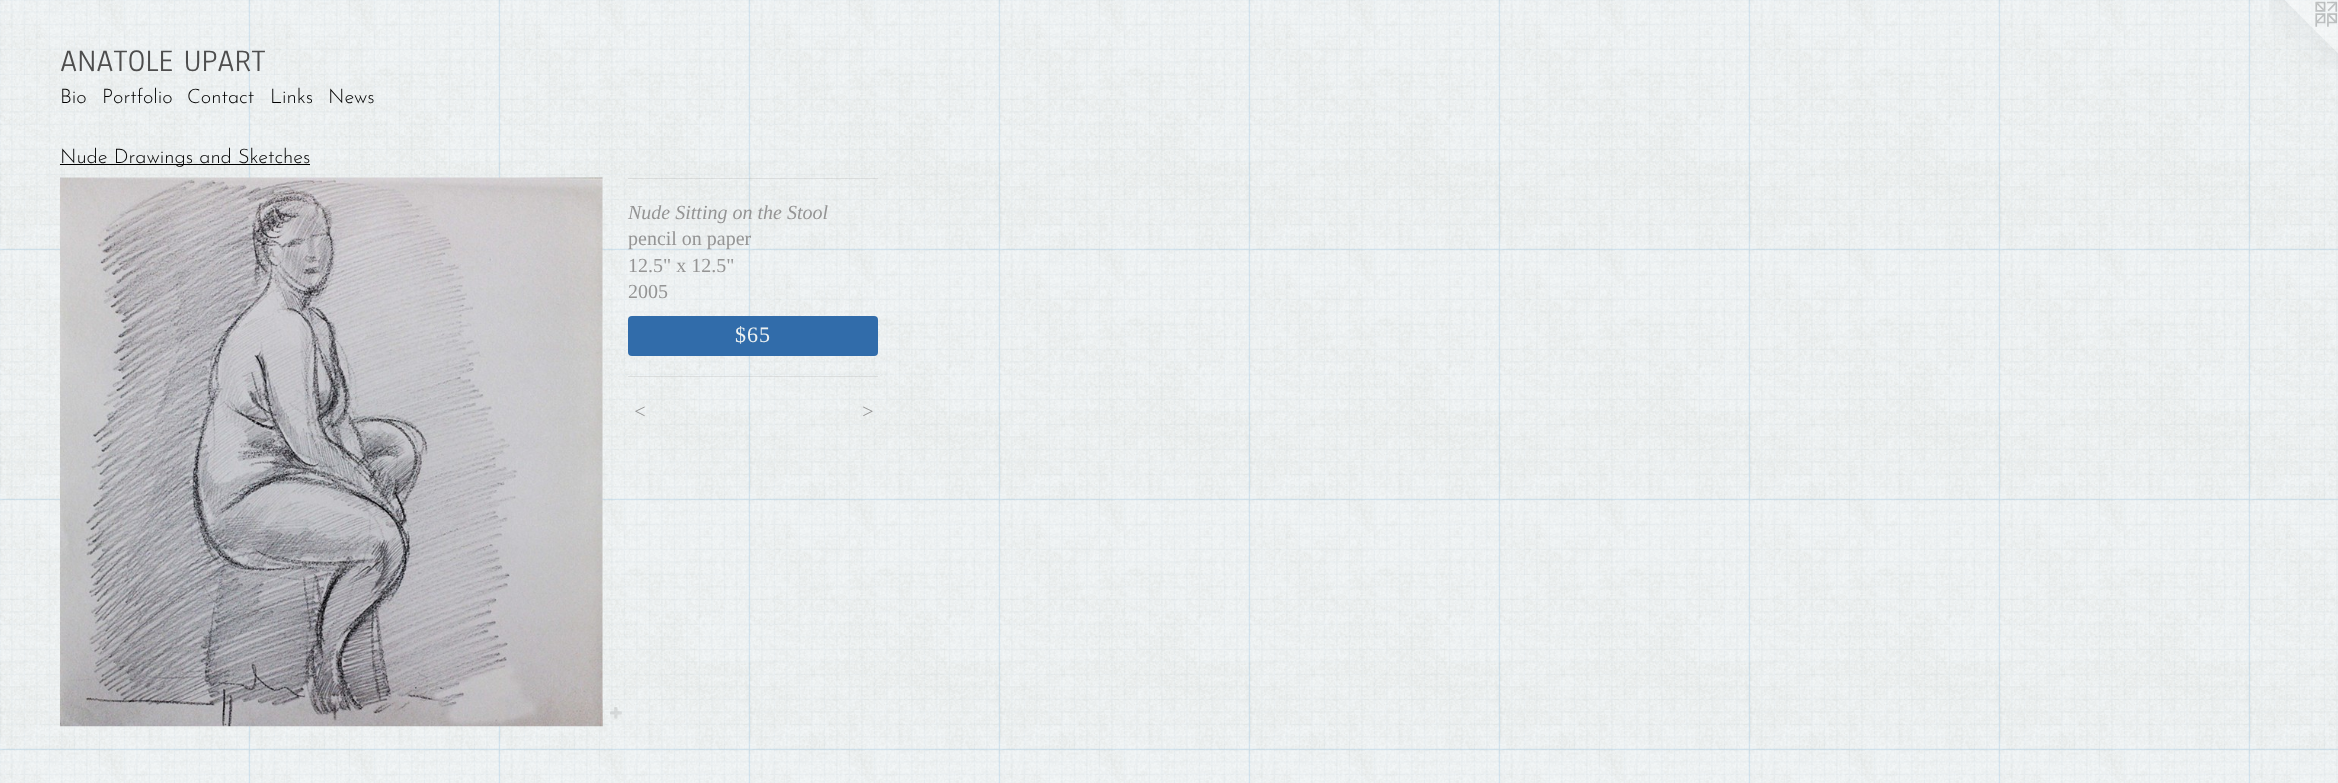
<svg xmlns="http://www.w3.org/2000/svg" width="2338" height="783">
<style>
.a{font:32.5px Anaheim;fill:#4d4d4d}
.b{font:100 20px Josefin Sans;fill:#000}
.c{font:italic 20px Liberation Serif;fill:#949494}
.d{font:20px Liberation Serif;fill:#949494}
.e{font:22px Liberation Serif;letter-spacing:1px;fill:#edf1f1}
.f{font:italic 20px Liberation Serif;letter-spacing:1px;fill:#949494}
</style>
<rect width="100%" height="100%" fill="#fff"/>
<image href="1.png" x="0" y="0" width="2338" height="783"/>
<image href="2.png" x="2269" y="0" width="69" height="69"/>
<path fill="#000" d="M60 164h250v1H60z"/>
<image href="3.png" x="60" y="177" width="543" height="550"/>
<image href="4.png" x="610" y="707" width="12" height="12"/>
<path fill="#94949433" d="M628 178h250v1H628z"/>
<rect fill="#316caa" x="628" y="316" width="250" height="40" rx="4"/>
<path fill="#94949433" d="M628 376h250v1H628z"/>
<text class="a" x="60" y="71">ANATOLE UPART</text>
<text class="b" x="60" y="103">Bio</text>
<text class="b" x="102" y="103">Portfolio</text>
<text class="b" x="187" y="103">Contact</text>
<text class="b" x="270" y="103">Links</text>
<text class="b" x="328" y="103">News</text>
<text class="b" x="60" y="163">Nude Drawings and Sketches</text>
<text class="c" x="628" y="219">Nude Sitting on the Stool</text>
<text class="d" x="628" y="245">pencil on paper</text>
<text class="d" x="628" y="272">12.5" x 12.5"</text>
<text class="d" x="628" y="298">2005</text>
<text class="e" x="735" y="342">$65</text>
<text class="f" x="633" y="418">&lt;</text>
<text class="f" x="861" y="418">&gt;</text>
</svg>
